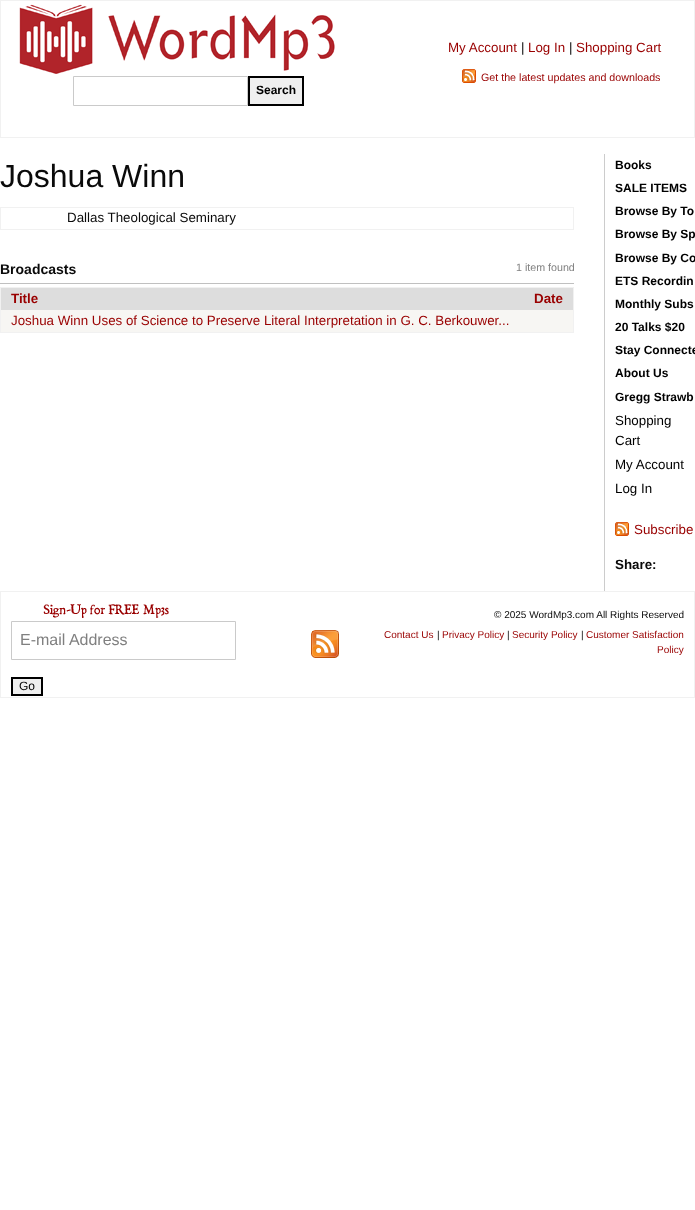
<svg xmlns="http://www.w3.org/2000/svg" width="695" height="1210">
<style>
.a{font:13.35px Liberation Sans;fill:#900}
.b{font:13.35px Liberation Sans;fill:#0a0a0a}
.c{font:10.7px Liberation Sans;fill:#900}
.d{font:bold 12px Liberation Sans;fill:#000}
.e{font:32px Liberation Sans;fill:#0a0a0a}
.f{font:bold 14px Liberation Sans;fill:#0a0a0a}
.g{font:10.7px Liberation Sans;fill:#808080}
.h{font:bold 13.35px Liberation Sans;fill:#900}
.i{font:13.35px Liberation Sans;fill:#000}
.j{font:bold 13.35px Liberation Sans;fill:#0a0a0a}
.k{font:16px Liberation Sans;fill:#808080}
.l{font:12px Liberation Sans;fill:#000}
.m{font:10px Liberation Sans;fill:#0a0a0a}
.n{font:10px Liberation Sans;fill:#900}
</style>
<rect width="100%" height="100%" fill="#fff"/>
<path fill="#f1f1f1" d="M0 0h695v1H0z"/>
<path fill="#f1f1f1" d="M694 0h1v138H694z"/>
<path fill="#f1f1f1" d="M0 137h695v1H0z"/>
<path fill="#f1f1f1" d="M0 0h1v138H0z"/>
<image href="1.png" x="462" y="69" width="14" height="14"/>
<image href="2.png" x="19" y="4" width="316" height="70"/>
<path fill="none" stroke="#cacaca" d="M73.5 76.5h174v29H73.5z"/>
<path fill="#efefef" stroke="#000" stroke-width="2" d="M249 77h54v28H249z"/>
<path fill="#f1f1f1" d="M0 207h574v1H0z"/>
<path fill="#f1f1f1" d="M573 207h1v23H573z"/>
<path fill="#f1f1f1" d="M0 229h574v1H0z"/>
<path fill="#f1f1f1" d="M0 207h1v23H0z"/>
<path fill="#c0c0c0" d="M0 283h574v1H0z"/>
<path fill="#f1f1f1" d="M0 287h574v1H0z"/>
<path fill="#f1f1f1" d="M573 287h1v46H573z"/>
<path fill="#f1f1f1" d="M0 332h574v1H0z"/>
<path fill="#f1f1f1" d="M0 287h1v46H0z"/>
<path fill="#ddd" d="M1 288h572v22H1z"/>
<path fill="#f7f6f3" d="M1 310h572v22H1z"/>
<path fill="#ccc" d="M604 154h1v437H604z"/>
<image href="1.png" x="615" y="522" width="14" height="14"/>
<path fill="#f1f1f1" d="M0 591h695v1H0z"/>
<path fill="#f1f1f1" d="M694 591h1v107H694z"/>
<path fill="#f1f1f1" d="M0 697h695v1H0z"/>
<path fill="#f1f1f1" d="M0 591h1v107H0z"/>
<image href="3.png" x="43" y="604" width="126" height="14"/>
<path fill="none" stroke="#cacaca" d="M11.5 621.5h224v38H11.5z"/>
<path fill="#efefef" stroke="#000" stroke-width="2" d="M12 678h30v17H12z"/>
<image href="4.png" x="311" y="630" width="28" height="28"/>
<text class="a" x="448" y="52">My Account</text>
<text class="b" x="521" y="52">|</text>
<text class="a" x="528" y="52">Log In</text>
<text class="b" x="569" y="52">|</text>
<text class="a" x="576" y="52">Shopping Cart</text>
<text class="c" x="481" y="81">Get the latest updates and downloads</text>
<text class="d" x="256" y="94">Search</text>
<text class="e" x="0" y="187">Joshua Winn</text>
<text class="b" x="67" y="222">Dallas Theological Seminary</text>
<text class="f" x="0" y="274">Broadcasts</text>
<text class="g" x="516" y="271">1 item found</text>
<text class="h" x="11" y="303">Title</text>
<text class="h" x="534" y="303">Date</text>
<text class="a" x="11" y="325">Joshua Winn Uses of Science to Preserve Literal Interpretation in G. C. Berkouwer...</text>
<text class="d" x="615" y="169">Books</text>
<text class="d" x="615" y="192">SALE ITEMS</text>
<text class="d" x="615" y="215">Browse By To</text>
<text class="d" x="615" y="238">Browse By Sp</text>
<text class="d" x="615" y="262">Browse By Co</text>
<text class="d" x="615" y="285">ETS Recordin</text>
<text class="d" x="615" y="308">Monthly Subs</text>
<text class="d" x="615" y="331">20 Talks $20</text>
<text class="d" x="615" y="354">Stay Connecte</text>
<text class="d" x="615" y="377">About Us</text>
<text class="d" x="615" y="401">Gregg Strawb</text>
<text class="i" x="615" y="425">Shopping</text>
<text class="i" x="615" y="445">Cart</text>
<text class="i" x="615" y="469">My Account</text>
<text class="i" x="615" y="493">Log In</text>
<text class="a" x="634" y="534">Subscribe</text>
<text class="j" x="615" y="569">Share:</text>
<text class="k" x="20" y="645">E-mail Address</text>
<text class="l" x="19" y="690">Go</text>
<text class="m" x="494" y="618">© 2025 WordMp3.com All Rights Reserved</text>
<text class="n" x="384" y="638">Contact Us</text>
<text class="m" x="437" y="638">|</text>
<text class="n" x="442" y="638">Privacy Policy</text>
<text class="m" x="507" y="638">|</text>
<text class="n" x="512" y="638">Security Policy</text>
<text class="m" x="581" y="638">|</text>
<text class="n" x="586" y="638">Customer Satisfaction</text>
<text class="n" x="657" y="653">Policy</text>
</svg>
